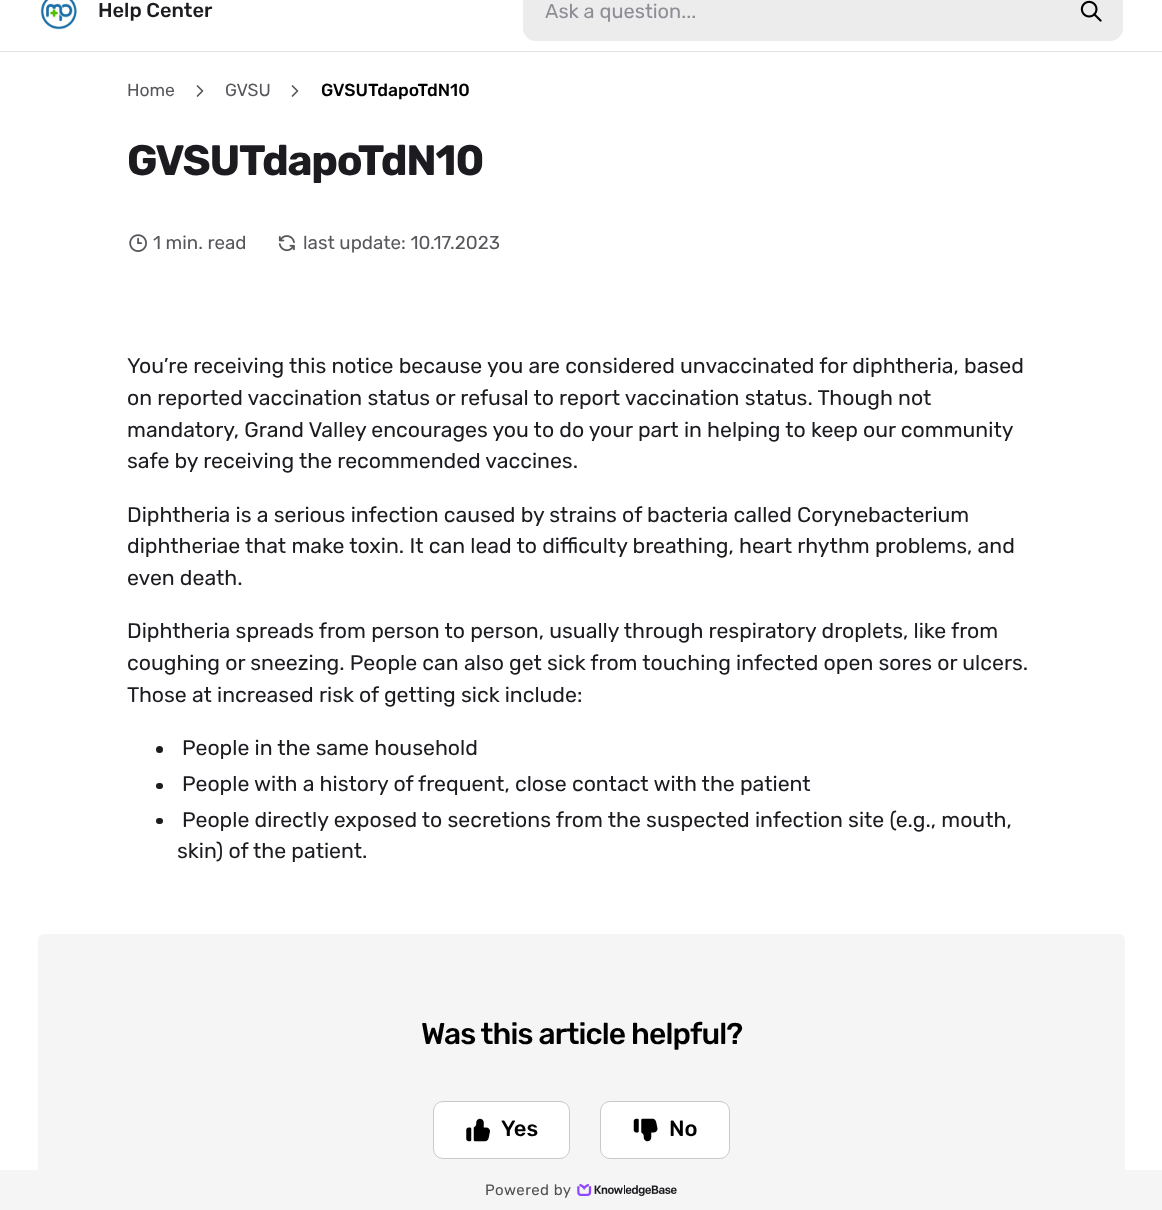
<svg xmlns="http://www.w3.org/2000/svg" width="1162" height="1210">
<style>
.a{font:500 20px Rubik;fill:#1b1b20}
.b{font:20px Rubik;fill:#8d8d95}
.c{font:17.5px Rubik;fill:#57575c}
.d{font:500 17.5px Rubik;fill:#000}
.e{font:bold 42.5px Rubik;letter-spacing:-1.25px;fill:#1b1b20}
.f{font:18.75px Rubik;fill:#57575c}
.g{font:21.25px Rubik;fill:#1b1b20}
.h{font:500 30px Rubik;letter-spacing:-0.9px;fill:#000}
.i{font:500 22px Rubik;fill:#000}
.j{font:15px Rubik;letter-spacing:0.5px;fill:#4f4f4f}
</style>
<rect width="100%" height="100%" fill="#fff"/>
<path fill="#e2e2e4" d="M0 51h1162v1H0z"/>
<image href="1.png" x="40" y="0" width="37" height="30"/>
<rect fill="#ececec" x="523" y="-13" width="600" height="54" rx="13"/>
<image href="2.png" x="1080" y="0" width="22" height="22"/>
<path fill="none" stroke="#57575c" stroke-width="1.7" stroke-linecap="round" stroke-linejoin="round" d="M197.5 86l5 5l-5 5"/>
<path fill="none" stroke="#57575c" stroke-width="1.7" stroke-linecap="round" stroke-linejoin="round" d="M292.5 86l5 5l-5 5"/>
<image href="3.png" x="129" y="234" width="18" height="18"/>
<image href="4.png" x="278" y="235" width="17" height="17"/>
<circle fill="#1b1b20" cx="159.5" cy="749.5" r="3.5"/>
<rect fill="#1b1b20" x="156" y="783" width="7" height="6" rx="3"/>
<rect fill="#1b1b20" x="156" y="818" width="7" height="6" rx="3"/>
<rect fill="#f5f5f5" x="38" y="934" width="1087" height="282" rx="6"/>
<rect fill="#fff" stroke="#c9c9cd" x="433.5" y="1101.5" width="136" height="57" rx="9.5"/>
<image href="5.png" x="466" y="1118" width="24" height="24"/>
<rect fill="#fff" stroke="#c9c9cd" x="600.5" y="1101.5" width="129" height="57" rx="9.5"/>
<image href="6.png" x="633" y="1118" width="25" height="24"/>
<path fill="#f5f5f5" d="M0 1170h1162v40H0z"/>
<image href="7.png" x="577" y="1184" width="100" height="12"/>
<text class="a" x="98" y="17">Help Center</text>
<text class="b" x="545" y="18">Ask a question...</text>
<text class="c" x="127" y="96">Home</text>
<text class="c" x="225" y="96">GVSU</text>
<text class="d" x="321" y="96">GVSUTdapoTdN10</text>
<text class="e" x="127" y="175">GVSUTdapoTdN10</text>
<text class="f" x="153" y="249">1 min. read</text>
<text class="f" x="303" y="249">last update: 10.17.2023</text>
<text class="g" x="127" y="373">You’re receiving this notice because you are considered unvaccinated for diphtheria, based</text>
<text class="g" x="127" y="405">on reported vaccination status or refusal to report vaccination status. Though not</text>
<text class="g" x="127" y="437">mandatory, Grand Valley encourages you to do your part in helping to keep our community</text>
<text class="g" x="127" y="468">safe by receiving the recommended vaccines.</text>
<text class="g" x="127" y="522">Diphtheria is a serious infection caused by strains of bacteria called Corynebacterium</text>
<text class="g" x="127" y="553">diphtheriae</text>
<text class="g" x="245" y="553">that make toxin. It can lead to difficulty breathing, heart rhythm problems, and</text>
<text class="g" x="127" y="585">even death.</text>
<text class="g" x="127" y="638">Diphtheria spreads from person to person, usually through respiratory droplets, like from</text>
<text class="g" x="127" y="670">coughing or sneezing. People can also get sick from touching infected open sores or ulcers.</text>
<text class="g" x="127" y="702">Those at increased risk of getting sick include:</text>
<text class="g" x="182" y="755">People in the same household</text>
<text class="g" x="182" y="791">People with a history of frequent, close contact with the patient</text>
<text class="g" x="182" y="827">People directly exposed to secretions from the suspected infection site (e.g., mouth,</text>
<text class="g" x="177" y="858">skin) of the patient.</text>
<text class="h" x="421" y="1044">Was this article helpful?</text>
<text class="i" x="501" y="1136">Yes</text>
<text class="i" x="669" y="1136">No</text>
<text class="j" x="485" y="1195">Powered by</text>
</svg>
